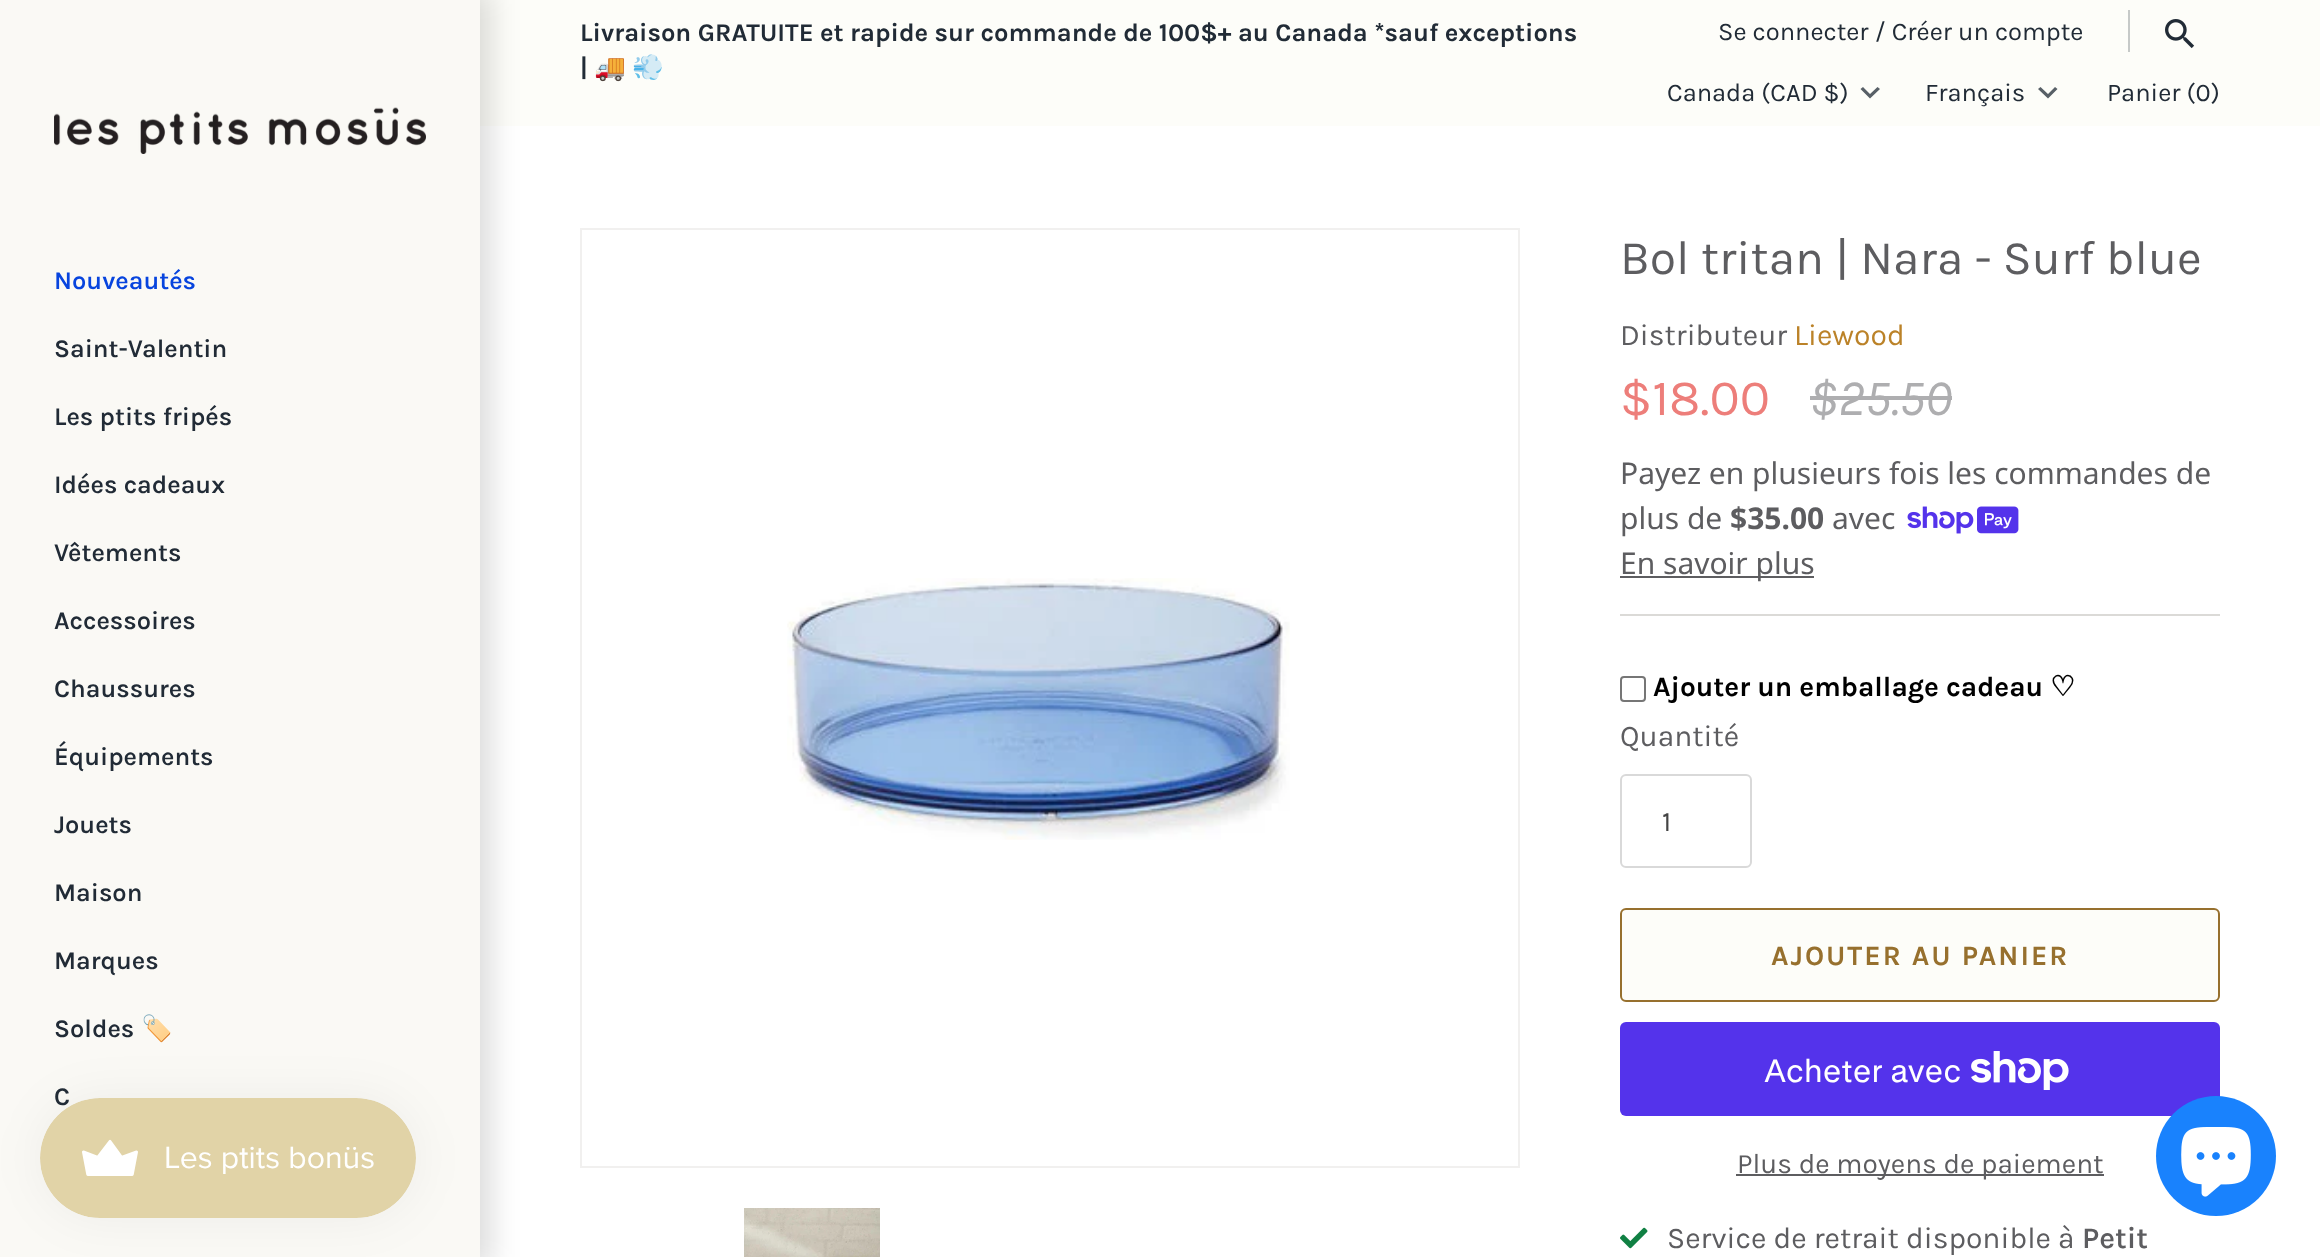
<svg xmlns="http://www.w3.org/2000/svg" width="2320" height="1257">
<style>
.a{font:bold 25.5px Karla;fill:#212b36}
.b{font:bold 25.5px Noto Color Emoji;fill:#212b36}
.c{font:25.5px Karla;fill:#212b36}
.d{font:600 25.5px Karla;fill:#0744de}
.e{font:600 25.5px Karla;fill:#212b36}
.f{font:48px Karla;fill:#5d5d60}
.g{font:30px Karla;fill:#5d5d60}
.h{font:30px Karla;fill:#bb8228}
.i{font:51px Karla;fill:#ed7e7a}
.j{font:italic 51px Karla;fill:#aeaeb0}
.k{font:30px Noto Sans;fill:#5d5d60}
.l{font:bold 30px Noto Sans;fill:#5d5d60}
.m{font:bold 28px Karla;fill:#000}
.n{font:bold 28px DejaVu Sans;fill:#000}
.o{font:28px Karla;fill:#444}
.p{font:bold 28px Karla;letter-spacing:2px;fill:#97702e}
.q{font:32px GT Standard;fill:#fff}
.r{font:28px Karla;fill:#5d5d60}
.s{font:600 30px Karla;fill:#5d5d60}
</style>
<rect width="100%" height="100%" fill="#fff"/>
<path fill="#fdfdf9" d="M480 0h1840v126H480z"/>
<path fill="#c6c9c8" d="M2128 10h2v42H2128z"/>
<image href="1.png" x="2165" y="19" width="30" height="30"/>
<path fill="#586067" d="M1863 87l7 7l7.5-7l2.5 2l-10 9.5l-9.5-9.5z"/>
<path fill="#586067" d="M2040.5 87l7.5 7l7-7l2.5 2l-9.5 9.5l-10-9.5z"/>
<path fill="#00000026" filter="blur(15px)" d="M-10 -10h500v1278H-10z"/>
<path fill="#faf9f5" d="M0 0h480v1257H0z"/>
<image href="2.png" x="54" y="107" width="372" height="47"/>
<path fill="none" stroke="#f1f0ef" stroke-width="2" d="M581 229h938v938H581z"/>
<image href="3.png" x="787" y="578" width="503" height="262"/>
<image href="4.png" x="744" y="1208" width="136" height="49"/>
<path fill="#aeaeb0" d="M1810 396h142v4H1810z"/>
<image href="5.png" x="1907" y="506" width="112" height="28"/>
<path fill="#5d5d60" d="M1620 576h194v2H1620z"/>
<path fill="#dbdad7" d="M1620 614h600v2H1620z"/>
<rect fill="none" stroke="#767676" stroke-width="2" x="1621" y="677" width="24" height="24" rx="3"/>
<rect fill="none" stroke="#d9d9d9" stroke-width="2" x="1621" y="775" width="130" height="92" rx="5"/>
<rect fill="#fdfdf9" stroke="#97702e" stroke-width="2" x="1621" y="909" width="598" height="92" rx="5"/>
<rect fill="#5433eb" x="1620" y="1022" width="600" height="94" rx="6"/>
<image href="6.png" x="1971" y="1051" width="98" height="39"/>
<path fill="#5d5d60" d="M1736 1174h368v2H1736z"/>
<image href="7.png" x="1620" y="1227" width="28" height="22"/>
<rect fill="#0000000d" filter="blur(25px)" x="40" y="1098" width="376" height="120" rx="60"/>
<circle fill="#1982fd" cx="2216" cy="1156" r="60"/>
<image href="9.png" x="2181" y="1127" width="70" height="70"/>
<text class="a" x="580" y="41">Livraison GRATUITE et rapide sur commande de 100$+ au Canada *sauf exceptions</text>
<text class="a" x="580" y="76">|</text>
<text class="b" x="594" y="76">🚚</text>
<text class="b" x="632" y="76">💨</text>
<text class="c" x="1718" y="40">Se connecter / Créer un compte</text>
<text class="c" x="1667" y="101">Canada (CAD $)</text>
<text class="c" x="1925" y="101">Français</text>
<text class="c" x="2107" y="101">Panier (0)</text>
<text class="d" x="54" y="289">Nouveautés</text>
<text class="e" x="54" y="357">Saint-Valentin</text>
<text class="e" x="54" y="425">Les ptits fripés</text>
<text class="e" x="54" y="493">Idées cadeaux</text>
<text class="e" x="54" y="561">Vêtements</text>
<text class="e" x="54" y="629">Accessoires</text>
<text class="e" x="54" y="697">Chaussures</text>
<text class="e" x="54" y="765">Équipements</text>
<text class="e" x="54" y="833">Jouets</text>
<text class="e" x="54" y="901">Maison</text>
<text class="e" x="54" y="969">Marques</text>
<text class="e" x="54" y="1037">Soldes</text>
<text class="b" x="141" y="1037">🏷️</text>
<text class="e" x="54" y="1105">C</text>
<text class="f" x="1620" y="274">Bol tritan | Nara - Surf blue</text>
<text class="g" x="1620" y="345">Distributeur</text>
<text class="h" x="1794" y="345">Liewood</text>
<text class="i" x="1620" y="415">$18.00</text>
<text class="j" x="1809" y="415">$25.50</text>
<text class="k" x="1620" y="484">Payez en plusieurs fois les commandes de</text>
<text class="k" x="1620" y="529">plus de</text>
<text class="l" x="1730" y="529">$35.00</text>
<text class="k" x="1832" y="529">avec</text>
<text class="k" x="1620" y="574">En savoir plus</text>
<text class="m" x="1653" y="696">Ajouter un emballage cadeau</text>
<text class="n" x="2050" y="696">♡</text>
<text class="g" x="1620" y="746">Quantité</text>
<text class="o" x="1662" y="831">1</text>
<text class="p" x="1771" y="965">AJOUTER AU PANIER</text>
<text class="q" x="1764" y="1082">Acheter avec</text>
<text class="r" x="1737" y="1173">Plus de moyens de paiement</text>
<text class="g" x="1667" y="1248">Service de retrait disponible à</text>
<text class="s" x="2082" y="1248">Petit</text>
<image href="8.png" x="40" y="1098" width="376" height="120"/>
</svg>
